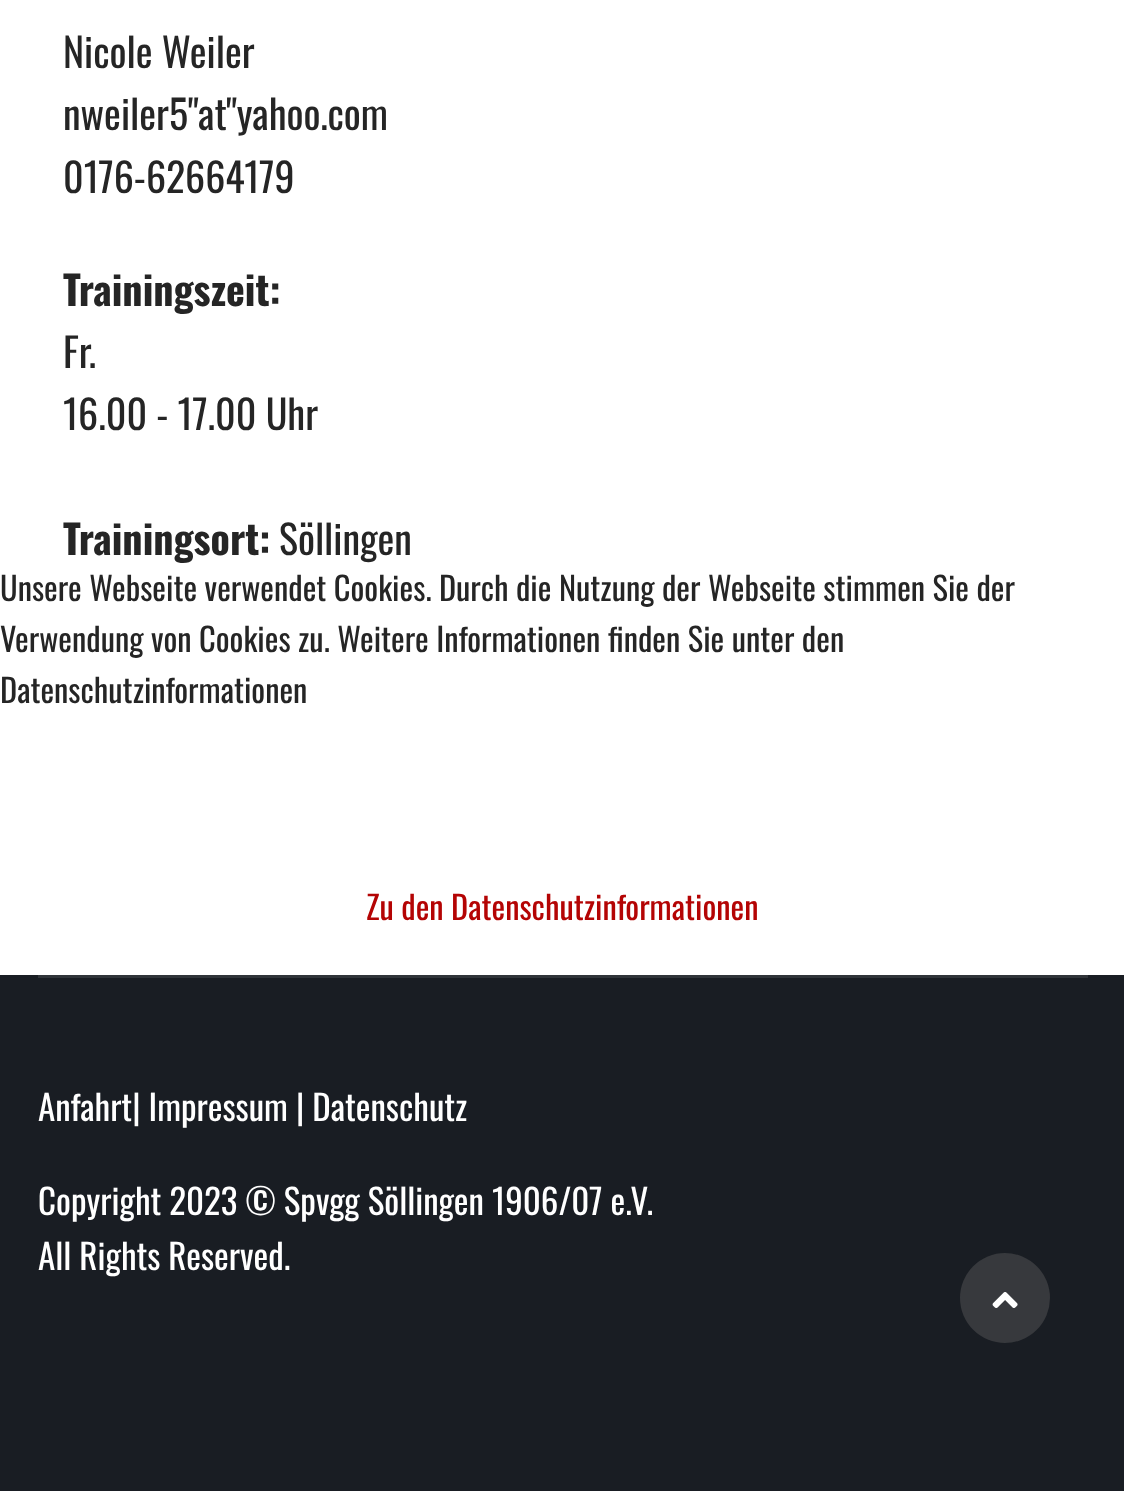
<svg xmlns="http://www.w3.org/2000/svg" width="1124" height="1491">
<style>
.a{font:40px Oswald;fill:#252525}
.b{font:bold 40px Oswald;fill:#252525}
.c{font:35px Oswald;fill:#fff}
.d{font:32.5px Oswald;fill:#252525}
.e{font:32.5px Oswald;fill:#b40404}
</style>
<rect width="100%" height="100%" fill="#fff"/>
<path fill="#191d23" d="M0 975h1124v516H0z"/>
<path fill="#303439" d="M38 975h1050v3H38z"/>
<circle fill="#37393d" cx="1005" cy="1298" r="45"/>
<image href="1.png" x="992" y="1292" width="26" height="16"/>
<text class="a" x="63" y="68">Nicole Weiler</text>
<text class="a" x="63" y="130">nweiler5"at"yahoo.com</text>
<text class="a" x="63" y="193">0176-62664179</text>
<text class="b" x="63" y="306">Trainingszeit:</text>
<text class="a" x="63" y="368">Fr.</text>
<text class="a" x="63" y="430">16.00 - 17.00 Uhr</text>
<text class="b" x="63" y="555">Trainingsort:</text>
<text class="a" x="279" y="555">Söllingen</text>
<text class="c" x="38" y="1121">Anfahrt| Impressum | Datenschutz</text>
<text class="c" x="38" y="1215">Copyright 2023 © Spvgg Söllingen 1906/07 e.V.</text>
<text class="c" x="38" y="1270">All Rights Reserved.</text>
<text class="d" x="0" y="601">Unsere Webseite verwendet Cookies. Durch die Nutzung der Webseite stimmen Sie der</text>
<text class="d" x="0" y="652">Verwendung von Cookies zu. Weitere Informationen finden Sie unter den</text>
<text class="d" x="0" y="703">Datenschutzinformationen</text>
<text class="e" x="366" y="920">Zu den Datenschutzinformationen</text>
</svg>
